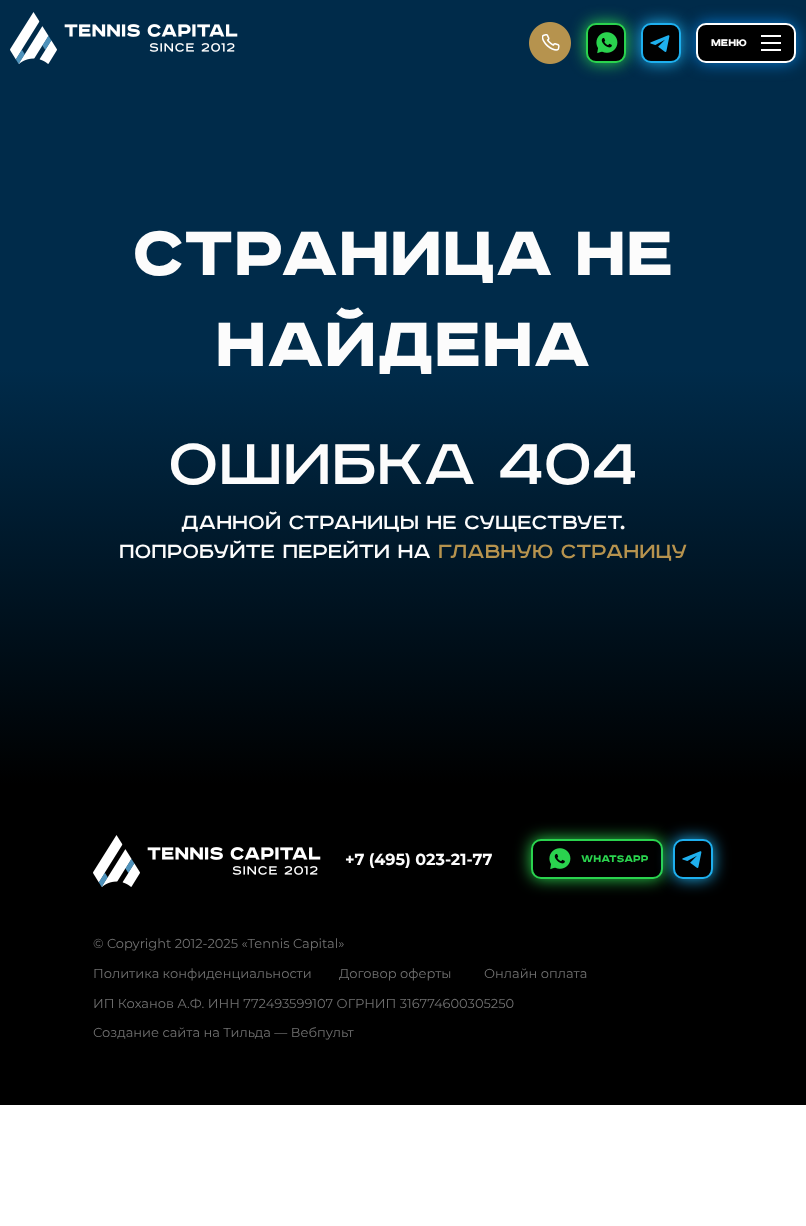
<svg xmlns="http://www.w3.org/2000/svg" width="806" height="1226">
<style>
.a{font:900 12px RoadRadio;fill:#fcfcfc}
.b{font:900 78px RoadRadio;fill:#fcfcfc}
.c{font:72px RoadRadio;fill:#fcfcfc}
.d{font:24px RoadRadio;fill:#fcfcfc}
.e{font:24px RoadRadio;fill:#b6934e}
.f{font:bold 16px Montserrat;fill:#fcfcfc}
.g{font:900 12px RoadRadio;fill:#2ad34e}
.h{font:13px Montserrat;fill:#717171}
</style>
<defs>
<linearGradient id="g1" gradientUnits="userSpaceOnUse" x1="403" y1="785" x2="403" y2="0"><stop offset="0" stop-color="#000"/><stop offset="0.53" stop-color="#002b4a"/></linearGradient>
</defs>
<rect width="100%" height="100%" fill="#fff"/>
<path fill="url(#g1)" d="M0 0h806v785H0z"/>
<image href="1.png" x="10" y="12" width="228" height="52"/>
<rect fill="#2ad34e" filter="blur(8px)" x="586" y="23" width="40" height="40" rx="10"/>
<image href="2.png" x="529" y="22" width="42" height="42"/>
<rect fill="#010101" stroke="#2ad34e" stroke-width="2" x="587" y="24" width="38" height="38" rx="9"/>
<image href="3.png" x="596" y="32" width="22" height="22"/>
<rect fill="#1fb0ee" filter="blur(8px)" x="641" y="23" width="40" height="40" rx="10"/>
<rect fill="#010101" stroke="#1eafee" stroke-width="2" x="642" y="24" width="38" height="38" rx="9"/>
<rect fill="#0778ce" filter="blur(8px)" x="696" y="23" width="100" height="40" rx="10"/>
<rect fill="#000" stroke="#fff" stroke-width="2" x="697" y="24" width="98" height="38" rx="9"/>
<image href="4.png" x="650" y="35" width="20" height="17"/>
<path fill="#fff" d="M761 35h20v2H761z"/>
<path fill="#fff" d="M761 42h20v2H761z"/>
<path fill="#fff" d="M761 49h20v2H761z"/>
<path fill="#000" d="M0 785h806v320H0z"/>
<image href="5.png" x="93" y="835" width="228" height="52"/>
<rect fill="#2ad34e" filter="blur(8px)" x="531" y="839" width="132" height="40" rx="10"/>
<rect fill="#010101" stroke="#2ad34e" stroke-width="2" x="532" y="840" width="130" height="38" rx="9"/>
<rect fill="#1fb0ee" filter="blur(8px)" x="673" y="839" width="40" height="40" rx="10"/>
<rect fill="#010101" stroke="#1eafee" stroke-width="2" x="674" y="840" width="38" height="38" rx="9"/>
<image href="3.png" x="549" y="848" width="22" height="22"/>
<image href="4.png" x="682" y="851" width="20" height="17"/>
<text class="a" x="711" y="46">МЕНЮ</text>
<text class="b" x="132" y="275">СтраницА не</text>
<text class="b" x="215" y="366">найдена</text>
<text class="c" x="168" y="484">ошибка 404</text>
<text class="d" x="181" y="529">Данной страницы не существует.</text>
<text class="d" x="119" y="558">Попробуйте перейти на</text>
<text class="e" x="438" y="558">главную страницу</text>
<text class="f" x="345" y="865">+7 (495) 023-21-77</text>
<text class="g" x="581" y="862">WhatsApp</text>
<text class="h" x="93" y="948">© Copyright 2012-2025 «Tennis Capital»</text>
<text class="h" x="93" y="978">Политика конфиденциальности</text>
<text class="h" x="339" y="978">Договор оферты</text>
<text class="h" x="484" y="978">Онлайн оплата</text>
<text class="h" x="93" y="1008">ИП Коханов А.Ф. ИНН 772493599107 ОГРНИП 316774600305250</text>
<text class="h" x="93" y="1037">Создание сайта на Тильда — Вебпульт</text>
</svg>
